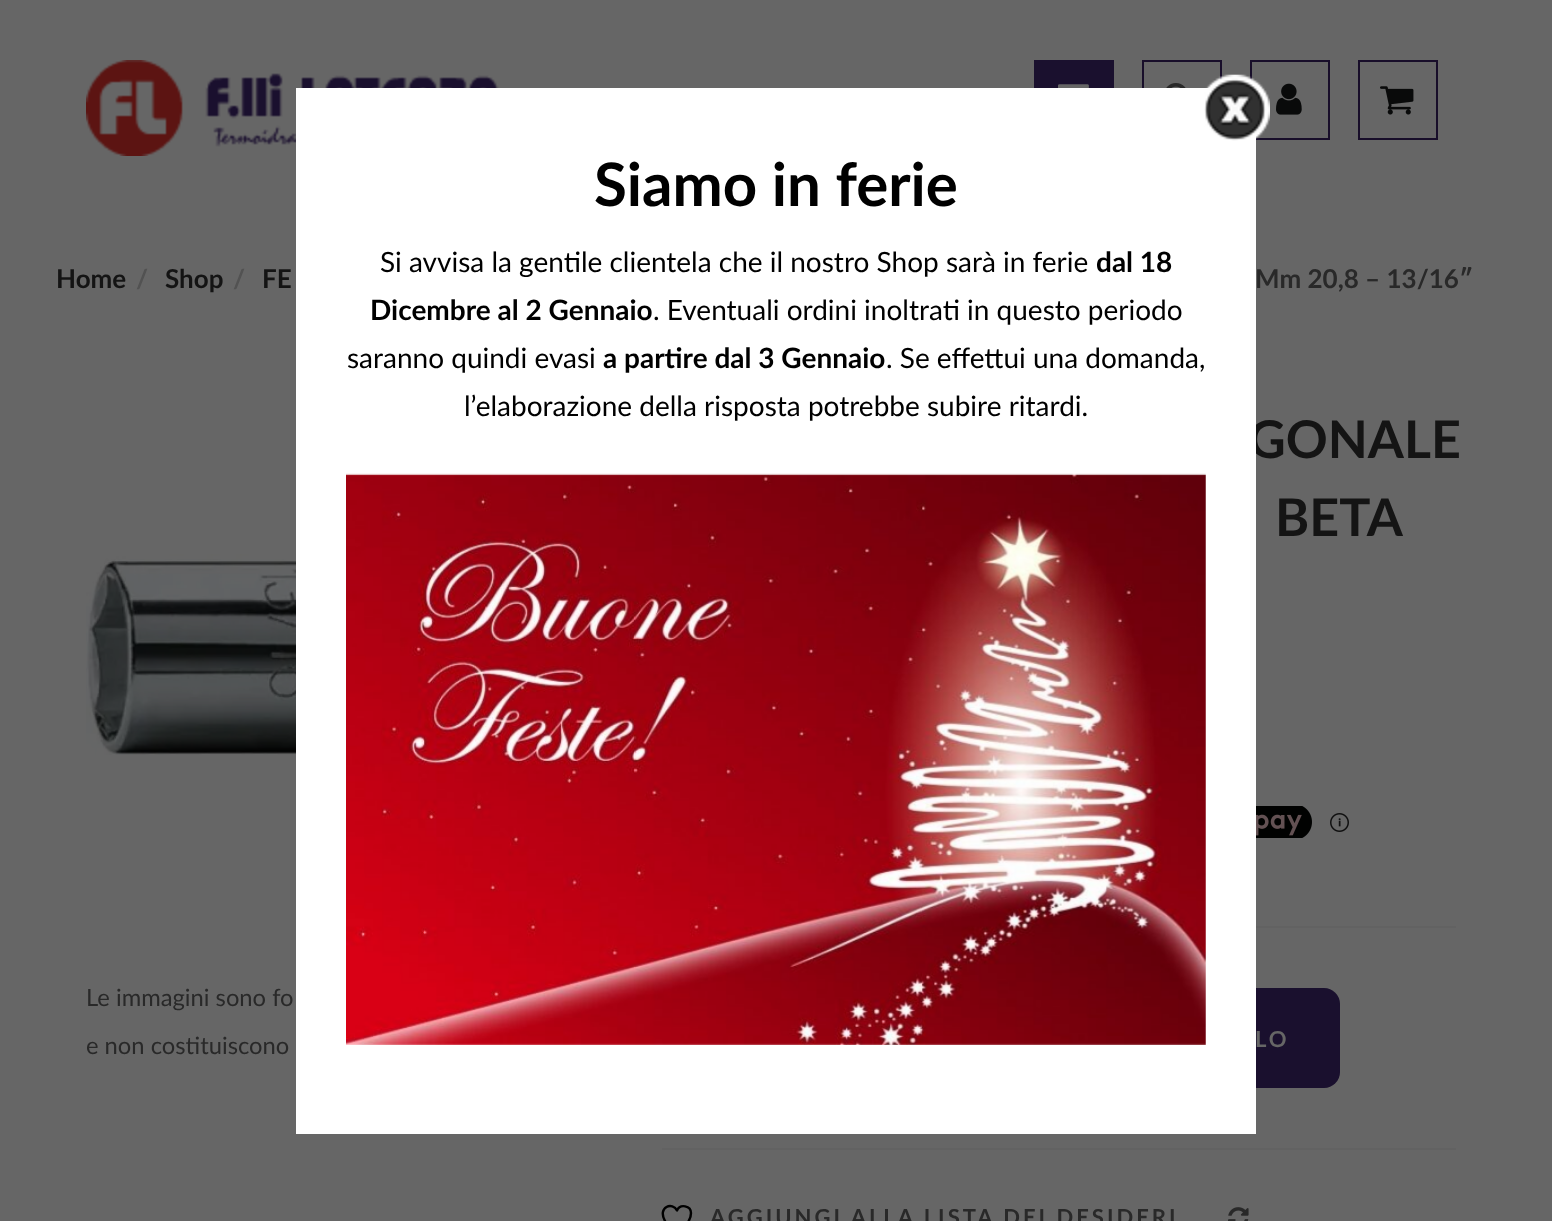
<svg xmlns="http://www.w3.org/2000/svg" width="1552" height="1221">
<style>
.a{font:bold 26px Lato;fill:#141414}
.b{font:bold 26px Lato;fill:#525252}
.c{font:bold 26px Lato;fill:#292929}
.d{font:23.75px Lato;fill:#292929}
.e{font:bold 52px Lato;fill:#141414}
.f{font:28px Lato;fill:#000}
.g{font:bold 28px Lato;fill:#000}
.h{font:bold 60px Lato;fill:#000}
.i{font:bold 22px Lato;letter-spacing:3px;fill:#666}
.j{font:bold 22px Lato;letter-spacing:3px;fill:#292929}
</style>
<rect width="100%" height="100%" fill="#666"/>
<image href="3.png" x="86" y="60" width="413" height="96"/>
<path fill="#1a102e" d="M1034 60h80v28H1034z"/>
<image href="4.png" x="1058" y="84" width="31" height="4"/>
<path fill="none" stroke="#180e2a" stroke-width="2" d="M1143 61h78v78H1143z"/>
<image href="5.png" x="1166" y="83" width="20" height="5"/>
<path fill="none" stroke="#180e2a" stroke-width="2" d="M1251 61h78v78H1251z"/>
<image href="6.png" x="1276" y="83" width="26" height="32"/>
<path fill="none" stroke="#180e2a" stroke-width="2" d="M1359 61h78v78H1359z"/>
<image href="7.png" x="1380" y="86" width="34" height="29"/>
<image href="8.png" x="86" y="554" width="210" height="201"/>
<image href="9.png" x="1256" y="806" width="56" height="32"/>
<image href="10.png" x="1330" y="813" width="19" height="19"/>
<path fill="#626262" d="M1256 926h200v2H1256z"/>
<path fill="#626262" d="M662 1148h794v2H662z"/>
<rect fill="#1a102e" x="884" y="988" width="456" height="100" rx="16"/>
<path fill="none" stroke="#000" stroke-width="2.4" stroke-linecap="round" stroke-linejoin="round" d="M691 1213c0-7.5-11-9.5-14-2.5c-4-9-20-4-12 10.5c2.5 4.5 7.5 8.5 12 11c0 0 14-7.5 14-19z"/>
<image href="11.png" x="1228" y="1207" width="21" height="14"/>
<text class="a" x="56" y="288">Home</text>
<text class="b" x="136" y="288">/</text>
<text class="a" x="165" y="288">Shop</text>
<text class="b" x="233" y="288">/</text>
<text class="a" x="262" y="288">FE</text>
<text class="c" x="1255" y="288">Mm 20,8 – 13/16″</text>
<text class="d" x="86" y="1006">Le immagini sono fo</text>
<text class="d" x="86" y="1054">e non costituiscono</text>
<text class="e" x="1248" y="458">GONALE</text>
<path fill="#fff" d="M296 88h960v1046H296z"/>
<image href="1.png" x="1204" y="74" width="66" height="67"/>
<image href="2.png" x="346" y="473" width="860" height="572"/>
<text class="f" x="464" y="416">l’elaborazione della risposta potrebbe subire ritardi.</text>
<text class="f" x="886" y="368">. Se effettui una domanda,</text>
<text class="g" x="603" y="368">a partire dal 3 Gennaio</text>
<text class="f" x="347" y="368">saranno quindi evasi</text>
<text class="f" x="653" y="320">. Eventuali ordini inoltrati in questo periodo</text>
<text class="g" x="370" y="320">Dicembre al 2 Gennaio</text>
<text class="g" x="1096" y="272">dal 18</text>
<text class="f" x="380" y="272">Si avvisa la gentile clientela che il nostro Shop sarà in ferie</text>
<text class="h" x="594" y="206">Siamo in ferie</text>
<text class="e" x="1275" y="536">BETA</text>
<text class="i" x="1255" y="1047">LO</text>
<text class="j" x="710" y="1225">AGGIUNGI ALLA LISTA DEI DESIDERI</text>
</svg>
